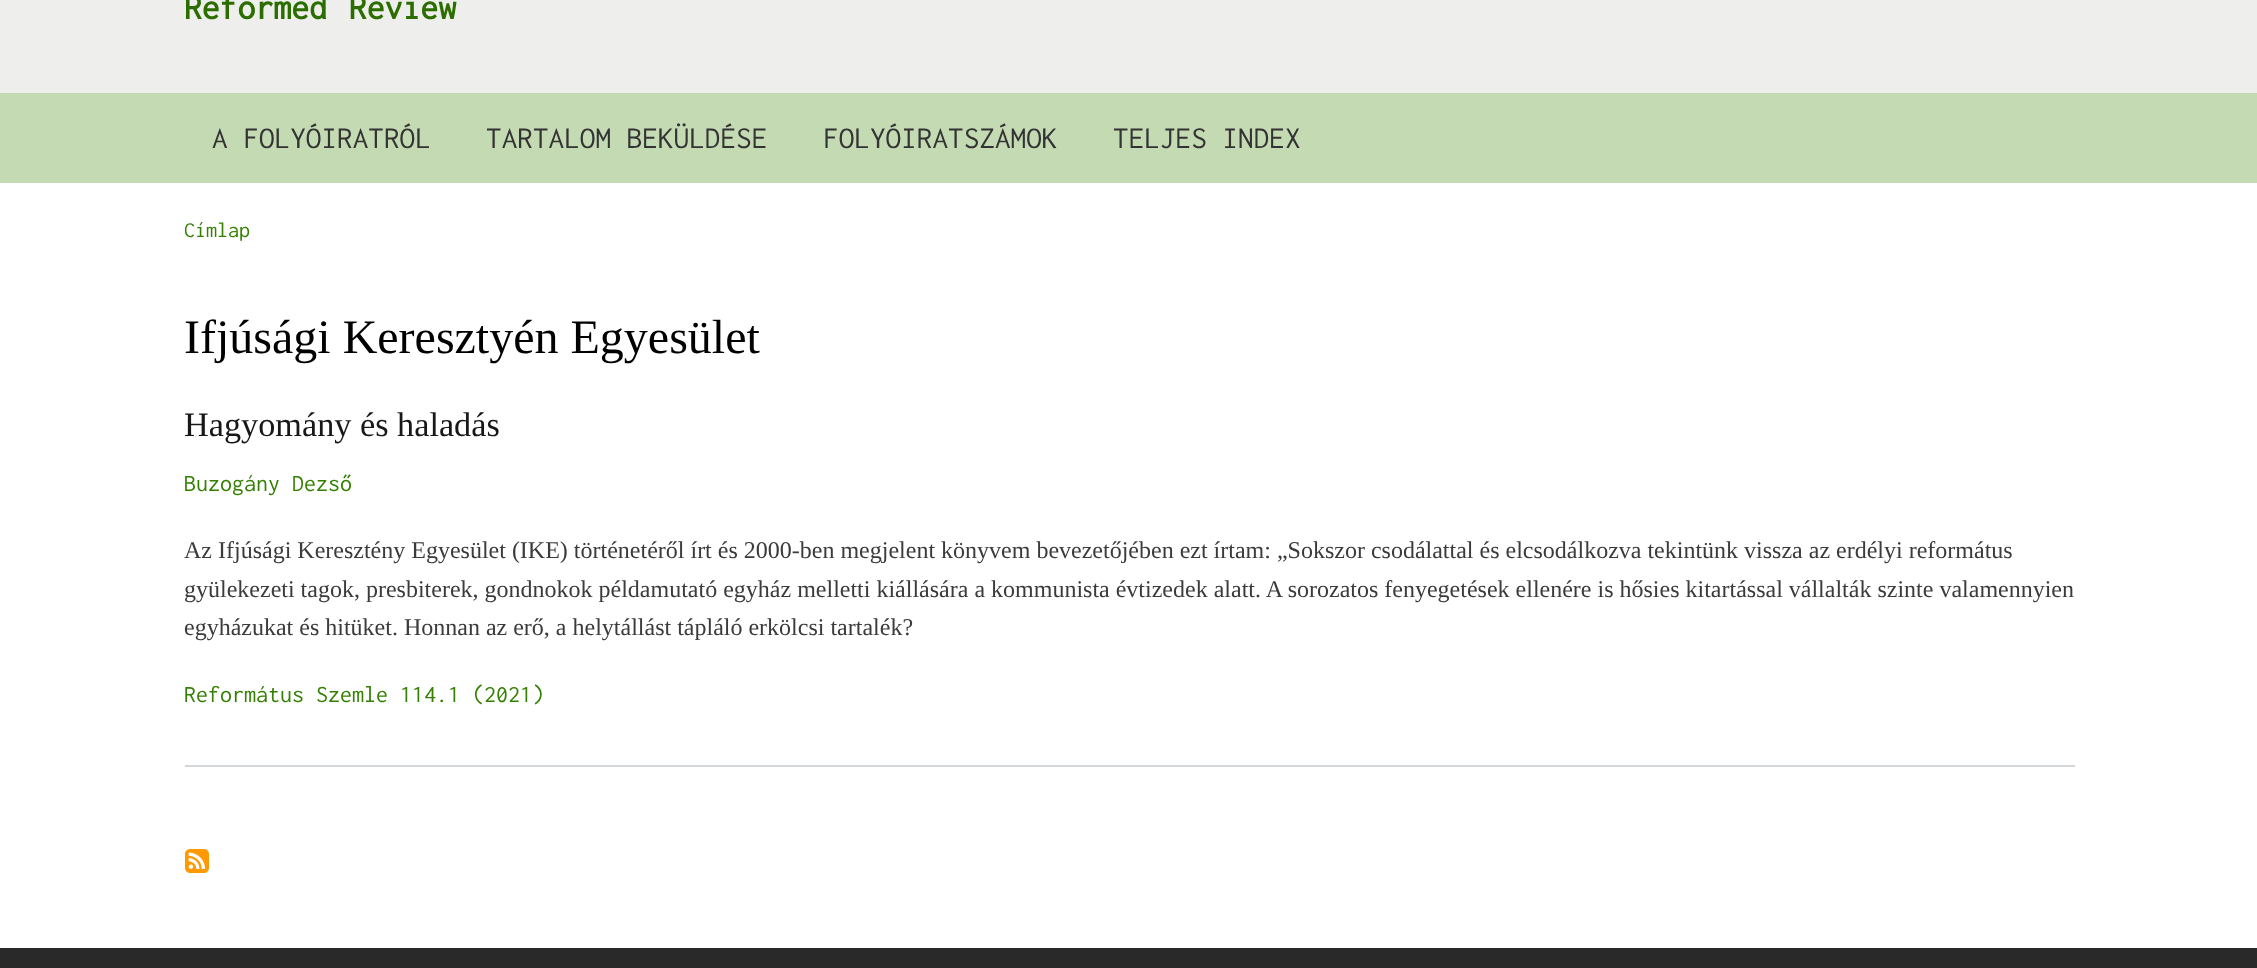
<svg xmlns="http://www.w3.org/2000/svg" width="2257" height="968">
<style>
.a{font:bold 35.75px Inconsolata;fill:#2c6d00}
.b{font:31.25px Inconsolata;fill:#333}
.c{font:22px Inconsolata;fill:#358003}
.d{font:48px Liberation Serif;fill:#000}
.e{font:34.25px Liberation Serif;fill:#181818}
.f{font:24px Inconsolata;fill:#358003}
.g{font:24px Liberation Serif;fill:#3b3b3b}
</style>
<rect width="100%" height="100%" fill="#fff"/>
<path fill="#eeefec" d="M0 0h2257v93H0z"/>
<path fill="#c3dab3" d="M0 93h2257v90H0z"/>
<path fill="#d3d7d9" d="M185 765h1890v2H185z"/>
<image href="1.png" x="185" y="849" width="24" height="24"/>
<path fill="#292929" d="M0 948h2257v20H0z"/>
<text class="a" x="184" y="19" word-spacing="4">Reformed Review</text>
<text class="b" x="212" y="148">A FOLYÓIRATRÓL</text>
<text class="b" x="486" y="148">TARTALOM BEKÜLDÉSE</text>
<text class="b" x="823" y="148">FOLYÓIRATSZÁMOK</text>
<text class="b" x="1113" y="148">TELJES INDEX</text>
<text class="c" x="184" y="237">Címlap</text>
<text class="d" x="184" y="353">Ifjúsági Keresztyén Egyesület</text>
<text class="e" x="184" y="436">Hagyomány és haladás</text>
<text class="f" x="184" y="491">Buzogány Dezső</text>
<text class="g" x="184" y="558">Az Ifjúsági Keresztény Egyesület (IKE) történetéről írt és 2000-ben megjelent könyvem bevezetőjében ezt írtam: „Sokszor csodálattal és elcsodálkozva tekintünk vissza az erdélyi református</text>
<text class="g" x="184" y="597">gyülekezeti tagok, presbiterek, gondnokok példamutató egyház melletti kiállására a kommunista évtizedek alatt. A sorozatos fenyegetések ellenére is hősies kitartással vállalták szinte valamennyien</text>
<text class="g" x="184" y="635">egyházukat és hitüket. Honnan az erő, a helytállást tápláló erkölcsi tartalék?</text>
<text class="f" x="184" y="702">Református Szemle 114.1 (2021)</text>
</svg>
